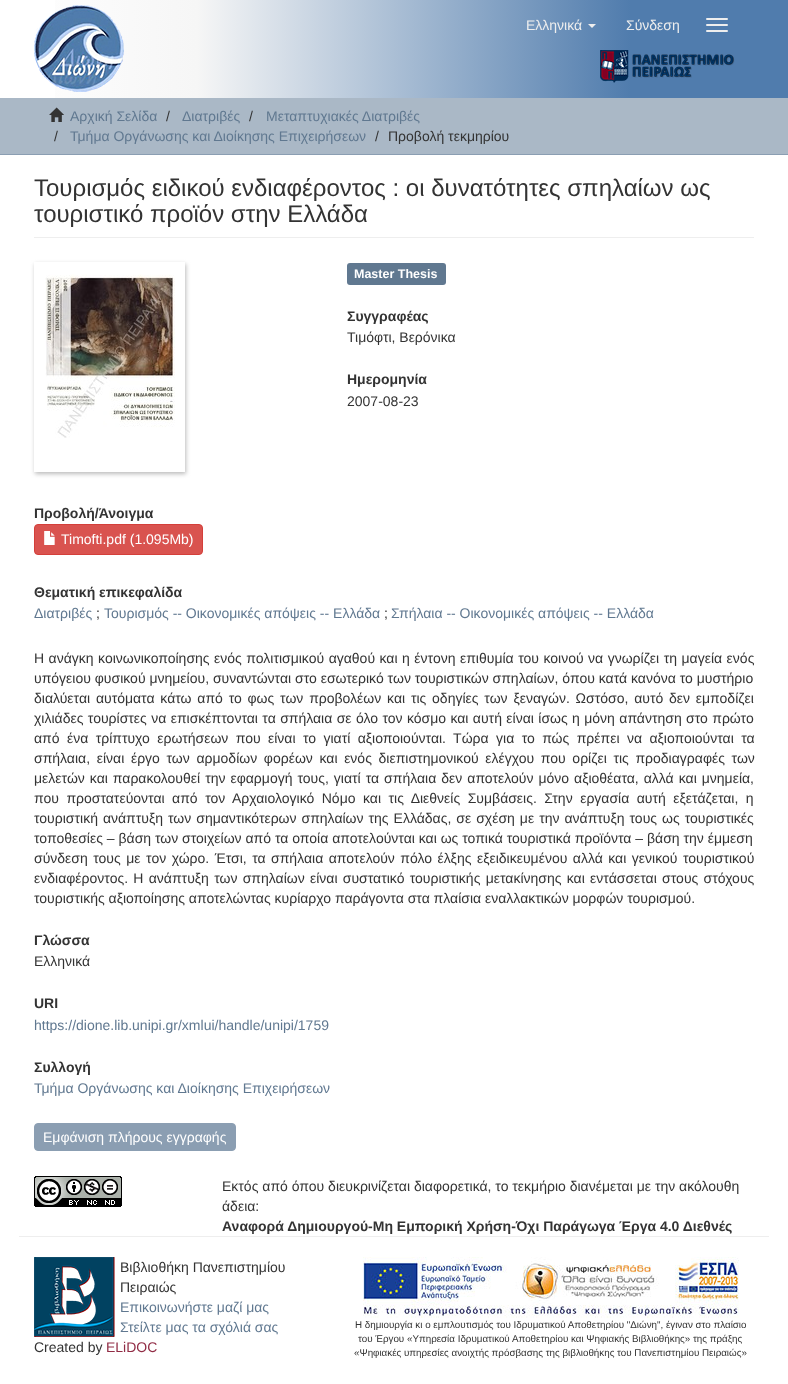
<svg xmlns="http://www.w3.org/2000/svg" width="788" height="1384">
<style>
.a{font:14px Liberation Sans;fill:#eee}
.b{font:14px Liberation Sans;fill:#607890}
.c{font:14px Liberation Sans;fill:#333}
.d{font:24px Liberation Sans;fill:#333}
.e{font:bold 12.5px Liberation Sans;fill:#fff}
.f{font:bold 14px Liberation Sans;fill:#333}
.g{font:14px Liberation Sans;fill:#fff}
.h{font:14px Liberation Sans;fill:#912c45}
.i{font:9.8px Liberation Sans;fill:#333}
</style>
<defs>
<linearGradient id="g1" gradientUnits="userSpaceOnUse" x1="0" y1="49" x2="788" y2="49"><stop offset="0" stop-color="#fff"/><stop offset="0.25" stop-color="#f6f6f6"/><stop offset="0.8" stop-color="#507cad"/></linearGradient>
<clipPath id="clip1"><path d="M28 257h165v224h-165zm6 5h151v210h-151z" clip-rule="evenodd"/></clipPath>
</defs>
<rect width="100%" height="100%" fill="#fff"/>
<path fill="url(#g1)" d="M55 0h733v98H55z"/>
<image href="1.png" x="34" y="5" width="90" height="87"/>
<path fill="#eee" d="M588 24h8l-4 4z"/>
<rect fill="#eee" x="706" y="18" width="22" height="2" rx="1"/>
<rect fill="#eee" x="706" y="24" width="22" height="2" rx="1"/>
<rect fill="#eee" x="706" y="30" width="22" height="2" rx="1"/>
<image href="2.png" x="600" y="50" width="135" height="33"/>
<path fill="#aab8c6" d="M0 98h788v56H0z"/>
<path fill="#8b9eb2" d="M0 154h788v1H0z"/>
<image href="3.png" x="49" y="107" width="15" height="15"/>
<path fill="#eee" d="M34 237h720v1H34z"/>
<g clip-path="url(#clip1)">
<path fill="#bbb" filter="blur(2px)" d="M35 264h151v210H35z"/>
</g>
<image href="4.png" x="45" y="274" width="130" height="164"/>
<rect fill="#607890" x="347" y="263" width="99" height="22" rx="3"/>
<rect fill="#d9534f" stroke="#d43f3a" x="34.5" y="524.5" width="168" height="30" rx="3.5"/>
<image href="5.png" x="44" y="531" width="11" height="14"/>
<rect fill="#8b9eb2" stroke="#8b9eb2" x="34.5" y="1123.5" width="201" height="27" rx="3.5"/>
<image href="6.png" x="34" y="1176" width="88" height="31"/>
<path fill="#eee" d="M19 1236h750v1H19z"/>
<image href="7.png" x="34" y="1257" width="81" height="80"/>
<image href="8.png" x="363" y="1257" width="376" height="61"/>
<text class="a" x="526" y="30">Ελληνικά</text>
<text class="a" x="626" y="30">Σύνδεση</text>
<text class="b" x="70" y="121">Αρχική Σελίδα</text>
<text class="c" x="166" y="121">/</text>
<text class="b" x="182" y="121">Διατριβές</text>
<text class="c" x="249" y="121">/</text>
<text class="b" x="266" y="121">Μεταπτυχιακές Διατριβές</text>
<text class="c" x="54" y="141">/</text>
<text class="b" x="70" y="141">Τμήμα Οργάνωσης και Διοίκησης Επιχειρήσεων</text>
<text class="c" x="375" y="141">/</text>
<text class="c" x="388" y="141">Προβολή τεκμηρίου</text>
<text class="d" x="34" y="196">Τουρισμός ειδικού ενδιαφέροντος : οι δυνατότητες σπηλαίων ως</text>
<text class="d" x="34" y="222">τουριστικό προϊόν στην Ελλάδα</text>
<text class="e" x="354" y="278">Master Thesis</text>
<text class="f" x="347" y="321">Συγγραφέας</text>
<text class="c" x="347" y="342">Τιμόφτι, Βερόνικα</text>
<text class="f" x="347" y="384">Ημερομηνία</text>
<text class="c" x="347" y="406">2007-08-23</text>
<text class="f" x="34" y="518">Προβολή/Άνοιγμα</text>
<text class="g" x="61" y="544">Timofti.pdf (1.095Mb)</text>
<text class="f" x="34" y="597">Θεματική επικεφαλίδα</text>
<text class="b" x="34" y="618">Διατριβές</text>
<text class="c" x="96" y="618">;</text>
<text class="b" x="104" y="618">Τουρισμός -- Οικονομικές απόψεις -- Ελλάδα</text>
<text class="c" x="384" y="618">;</text>
<text class="b" x="391" y="618">Σπήλαια -- Οικονομικές απόψεις -- Ελλάδα</text>
<text class="c" x="34" y="663" word-spacing="0.6">Η ανάγκη κοινωνικοποίησης ενός πολιτισμικού αγαθού και η έντονη επιθυμία του κοινού να γνωρίζει τη μαγεία ενός</text>
<text class="c" x="34" y="683">υπόγειου φυσικού μνημείου, συναντώνται στο εσωτερικό των τουριστικών σπηλαίων, όπου κατά κανόνα το μυστήριο</text>
<text class="c" x="34" y="703" word-spacing="1.9">διαλύεται αυτόματα κάτω από το φως των προβολέων και τις οδηγίες των ξεναγών. Ωστόσο, αυτό δεν εμποδίζει</text>
<text class="c" x="34" y="723" word-spacing="0.5">χιλιάδες τουρίστες να επισκέπτονται τα σπήλαια σε όλο τον κόσμο και αυτή είναι ίσως η μόνη απάντηση στο πρώτο</text>
<text class="c" x="34" y="743" word-spacing="3.5">από ένα τρίπτυχο ερωτήσεων που είναι το γιατί αξιοποιούνται. Τώρα για το πώς πρέπει να αξιοποιούνται τα</text>
<text class="c" x="34" y="763" word-spacing="2.75">σπήλαια, είναι έργο των αρμοδίων φορέων και ενός διεπιστημονικού ελέγχου που ορίζει τις προδιαγραφές των</text>
<text class="c" x="34" y="783" word-spacing="1.1">μελετών και παρακολουθεί την εφαρμογή τους, γιατί τα σπήλαια δεν αποτελούν μόνο αξιοθέατα, αλλά και μνημεία,</text>
<text class="c" x="34" y="803" word-spacing="3.6">που προστατεύονται από τον Αρχαιολογικό Νόμο και τις Διεθνείς Συμβάσεις. Στην εργασία αυτή εξετάζεται, η</text>
<text class="c" x="34" y="823" word-spacing="1.1">τουριστική ανάπτυξη των σημαντικότερων σπηλαίων της Ελλάδας, σε σχέση με την ανάπτυξη τους ως τουριστικές</text>
<text class="c" x="34" y="843">τοποθεσίες – βάση των στοιχείων από τα οποία αποτελούνται και ως τοπικά τουριστικά προϊόντα – βάση την έμμεση</text>
<text class="c" x="34" y="863" word-spacing="1.6">σύνδεση τους με τον χώρο. Έτσι, τα σπήλαια αποτελούν πόλο έλξης εξειδικευμένου αλλά και γενικού τουριστικού</text>
<text class="c" x="34" y="883" word-spacing="1.4">ενδιαφέροντος. Η ανάπτυξη των σπηλαίων είναι συστατικό τουριστικής μετακίνησης και εντάσσεται στους στόχους</text>
<text class="c" x="34" y="903">τουριστικής αξιοποίησης αποτελώντας κυρίαρχο παράγοντα στα πλαίσια εναλλακτικών μορφών τουρισμού.</text>
<text class="f" x="34" y="945">Γλώσσα</text>
<text class="c" x="34" y="966">Ελληνικά</text>
<text class="f" x="34" y="1008">URI</text>
<text class="b" x="34" y="1030">https://dione.lib.unipi.gr/xmlui/handle/unipi/1759</text>
<text class="f" x="34" y="1072">Συλλογή</text>
<text class="b" x="34" y="1093">Τμήμα Οργάνωσης και Διοίκησης Επιχειρήσεων</text>
<text class="g" x="43" y="1142">Εμφάνιση πλήρους εγγραφής</text>
<text class="c" x="222" y="1191">Εκτός από όπου διευκρινίζεται διαφορετικά, το τεκμήριο διανέμεται με την ακόλουθη</text>
<text class="c" x="222" y="1211">άδεια:</text>
<text class="f" x="222" y="1231">Αναφορά Δημιουργού-Μη Εμπορική Χρήση-Όχι Παράγωγα Έργα 4.0 Διεθνές</text>
<text class="c" x="120" y="1272">Βιβλιοθήκη Πανεπιστημίου</text>
<text class="c" x="120" y="1292">Πειραιώς</text>
<text class="b" x="120" y="1312">Επικοινωνήστε μαζί μας</text>
<text class="b" x="120" y="1332">Στείλτε μας τα σχόλιά σας</text>
<text class="c" x="34" y="1352">Created by</text>
<text class="h" x="106" y="1352">ELiDOC</text>
<text class="i" x="355" y="1328">Η δημιουργία κι ο εμπλουτισμός του Ιδρυματικού Αποθετηρίου "Διώνη", έγιναν στο πλαίσιο</text>
<text class="i" x="358" y="1342">του Έργου «Υπηρεσία Ιδρυματικού</text>
<text class="i" x="512" y="1342">Αποθετηρίου και Ψηφιακής Βιβλιοθήκης» της πράξης</text>
<text class="i" x="354" y="1356">«Ψηφιακές υπηρεσίες ανοιχτής πρόσβασης της βιβλιοθήκης του Πανεπιστημίου Πειραιώς»</text>
</svg>
